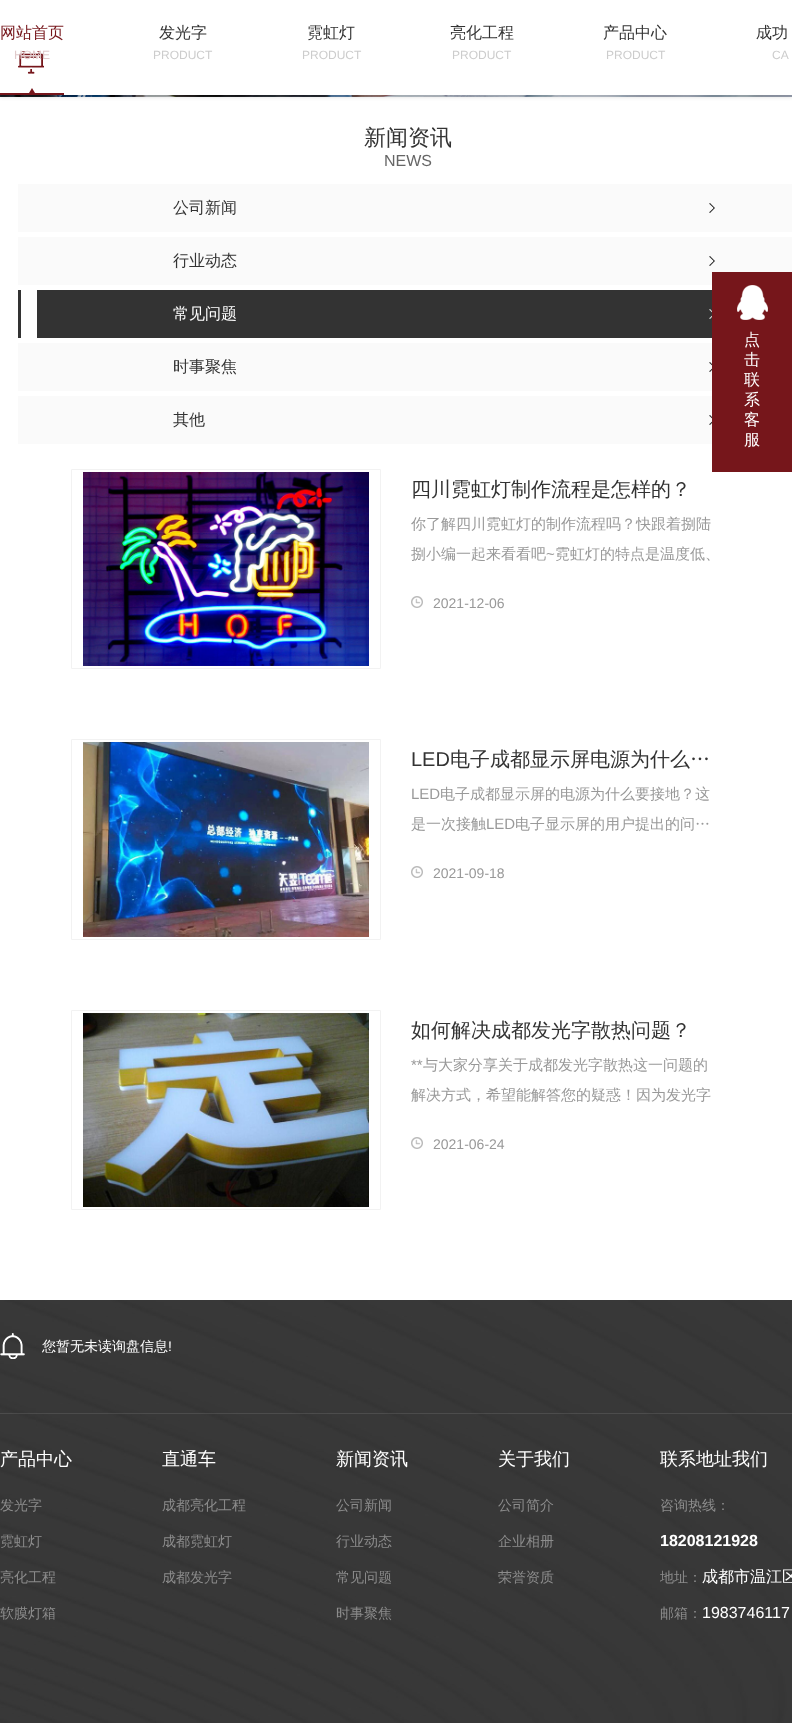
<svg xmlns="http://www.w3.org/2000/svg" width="792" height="1723">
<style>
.a{font:500 16px WenQuanYi Zen Hei;fill:#76161b}
.b{font:12px Liberation Sans;fill:#e0cacb}
.c{font:500 16px WenQuanYi Zen Hei;fill:#333}
.d{font:12px Liberation Sans;fill:#ccc}
.e{font:500 22px WenQuanYi Zen Hei;fill:#333}
.f{font:16px Liberation Sans;fill:#666}
.g{font:500 16px WenQuanYi Zen Hei;fill:#fff}
.h{font:500 20px WenQuanYi Zen Hei;fill:#333}
.i{font:500 15px WenQuanYi Zen Hei;fill:#999}
.j{font:15px Liberation Sans;fill:#999}
.k{font:14px Liberation Sans;fill:#999}
.l{font:20px Liberation Sans;fill:#333}
.m{font:500 14px WenQuanYi Zen Hei;fill:#fff}
.n{font:14px Liberation Sans;fill:#fff}
.o{font:500 18px WenQuanYi Zen Hei;fill:#fff}
.p{font:500 14px WenQuanYi Zen Hei;fill:#8c8c8c}
.q{font:bold 16px Liberation Sans;fill:#fff}
.r{font:16px Liberation Sans;fill:#fff}
</style>
<rect width="100%" height="100%" fill="#fff"/>
<image href="2.png" x="0" y="95" width="792" height="2"/>
<path fill="#00000033" filter="blur(2.5px)" d="M-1 -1h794v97H-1z"/>
<path fill="#fff" d="M0 0h792v95H0z"/>
<image href="1.png" x="0" y="51" width="64" height="44"/>
<path fill="#fafafa" d="M18 184h774v48H18z"/>
<image href="3.png" x="709" y="203" width="6" height="10"/>
<path fill="#fafafa" d="M18 237h774v48H18z"/>
<image href="3.png" x="709" y="256" width="6" height="10"/>
<path fill="#333" d="M18 290h694v48H18z"/>
<path fill="#fff" d="M21 290h16v48H21z"/>
<image href="4.png" x="709" y="309" width="3" height="10"/>
<path fill="#fafafa" d="M18 343h694v48H18z"/>
<image href="5.png" x="709" y="362" width="3" height="10"/>
<path fill="#fafafa" d="M18 396h694v48H18z"/>
<image href="5.png" x="709" y="415" width="3" height="10"/>
<path fill="none" stroke="#f2f2f2" d="M71.5 469.5h309v199H71.5z"/>
<image href="6.png" x="83" y="472" width="286" height="194"/>
<image href="7.png" x="411" y="596" width="12" height="12"/>
<path fill="none" stroke="#f2f2f2" d="M71.5 739.5h309v200H71.5z"/>
<image href="8.png" x="83" y="742" width="286" height="195"/>
<image href="7.png" x="411" y="866" width="12" height="12"/>
<path fill="none" stroke="#f2f2f2" d="M71.5 1010.5h309v199H71.5z"/>
<image href="9.png" x="83" y="1013" width="286" height="194"/>
<image href="7.png" x="411" y="1137" width="12" height="12"/>
<path fill="#76161b" d="M712 272h80v200H712z"/>
<image href="10.png" x="737" y="285" width="31" height="35"/>
<image href="11.png" x="0" y="1300" width="792" height="423"/>
<path fill="#ffffff1a" d="M0 1413h792v1H0z"/>
<image href="12.png" x="0" y="1333" width="25" height="26"/>
<text class="a" x="0" y="38">网站首页</text>
<text class="b" x="14" y="59">HOME</text>
<text class="c" x="159" y="38">发光字</text>
<text class="d" x="153" y="59">PRODUCT</text>
<text class="c" x="307" y="38">霓虹灯</text>
<text class="d" x="302" y="59">PRODUCT</text>
<text class="c" x="450" y="38">亮化工程</text>
<text class="d" x="452" y="59">PRODUCT</text>
<text class="c" x="603" y="38">产品中心</text>
<text class="d" x="606" y="59">PRODUCT</text>
<text class="c" x="756" y="38">成功</text>
<text class="d" x="772" y="59">CA</text>
<text class="e" x="364" y="145">新闻资讯</text>
<text class="f" x="384" y="166">NEWS</text>
<text class="c" x="173" y="213">公司新闻</text>
<text class="c" x="173" y="266">行业动态</text>
<text class="g" x="173" y="319">常见问题</text>
<text class="c" x="173" y="372">时事聚焦</text>
<text class="c" x="173" y="425">其他</text>
<text class="h" x="411" y="496">四川霓虹灯制作流程是怎样的？</text>
<text class="i" x="411" y="529">你了解四川霓虹灯的制作流程吗？快跟着捌陆</text>
<text class="i" x="411" y="559">捌小编一起来看看吧</text>
<text class="j" x="546" y="559">~</text>
<text class="i" x="555" y="559">霓虹灯的特点是温度低、</text>
<text class="k" x="433" y="608">2021-12-06</text>
<text class="l" x="411" y="766">LED</text>
<text class="h" x="450" y="766">电子成都显示屏电源为什么…</text>
<text class="j" x="411" y="799">LED</text>
<text class="i" x="440" y="799">电子成都显示屏的电源为什么要接地？这</text>
<text class="i" x="411" y="829">是一次接触</text>
<text class="j" x="486" y="829">LED</text>
<text class="i" x="515" y="829">电子显示屏的用户提出的问…</text>
<text class="k" x="433" y="878">2021-09-18</text>
<text class="h" x="411" y="1037">如何解决成都发光字散热问题？</text>
<text class="j" x="411" y="1070">**</text>
<text class="i" x="423" y="1070">与大家分享关于成都发光字散热这一问题的</text>
<text class="i" x="411" y="1100">解决方式，希望能解答您的疑惑！因为发光字</text>
<text class="k" x="433" y="1149">2021-06-24</text>
<text class="g" x="744" y="345">点</text>
<text class="g" x="744" y="365">击</text>
<text class="g" x="744" y="385">联</text>
<text class="g" x="744" y="405">系</text>
<text class="g" x="744" y="425">客</text>
<text class="g" x="744" y="445">服</text>
<text class="m" x="42" y="1351">您暂无未读询盘信息</text>
<text class="n" x="168" y="1351">!</text>
<text class="o" x="0" y="1465">产品中心</text>
<text class="p" x="0" y="1510">发光字</text>
<text class="p" x="0" y="1546">霓虹灯</text>
<text class="p" x="0" y="1582">亮化工程</text>
<text class="p" x="0" y="1618">软膜灯箱</text>
<text class="o" x="162" y="1465">直通车</text>
<text class="p" x="162" y="1510">成都亮化工程</text>
<text class="p" x="162" y="1546">成都霓虹灯</text>
<text class="p" x="162" y="1582">成都发光字</text>
<text class="o" x="336" y="1465">新闻资讯</text>
<text class="p" x="336" y="1510">公司新闻</text>
<text class="p" x="336" y="1546">行业动态</text>
<text class="p" x="336" y="1582">常见问题</text>
<text class="p" x="336" y="1618">时事聚焦</text>
<text class="o" x="498" y="1465">关于我们</text>
<text class="p" x="498" y="1510">公司简介</text>
<text class="p" x="498" y="1546">企业相册</text>
<text class="p" x="498" y="1582">荣誉资质</text>
<text class="o" x="660" y="1465">联系地址我们</text>
<text class="p" x="660" y="1510">咨询热线：</text>
<text class="q" x="660" y="1546">18208121928</text>
<text class="p" x="660" y="1582">地址：</text>
<text class="g" x="702" y="1582">成都市温江区</text>
<text class="p" x="660" y="1618">邮箱：</text>
<text class="r" x="702" y="1618">1983746117</text>
</svg>
